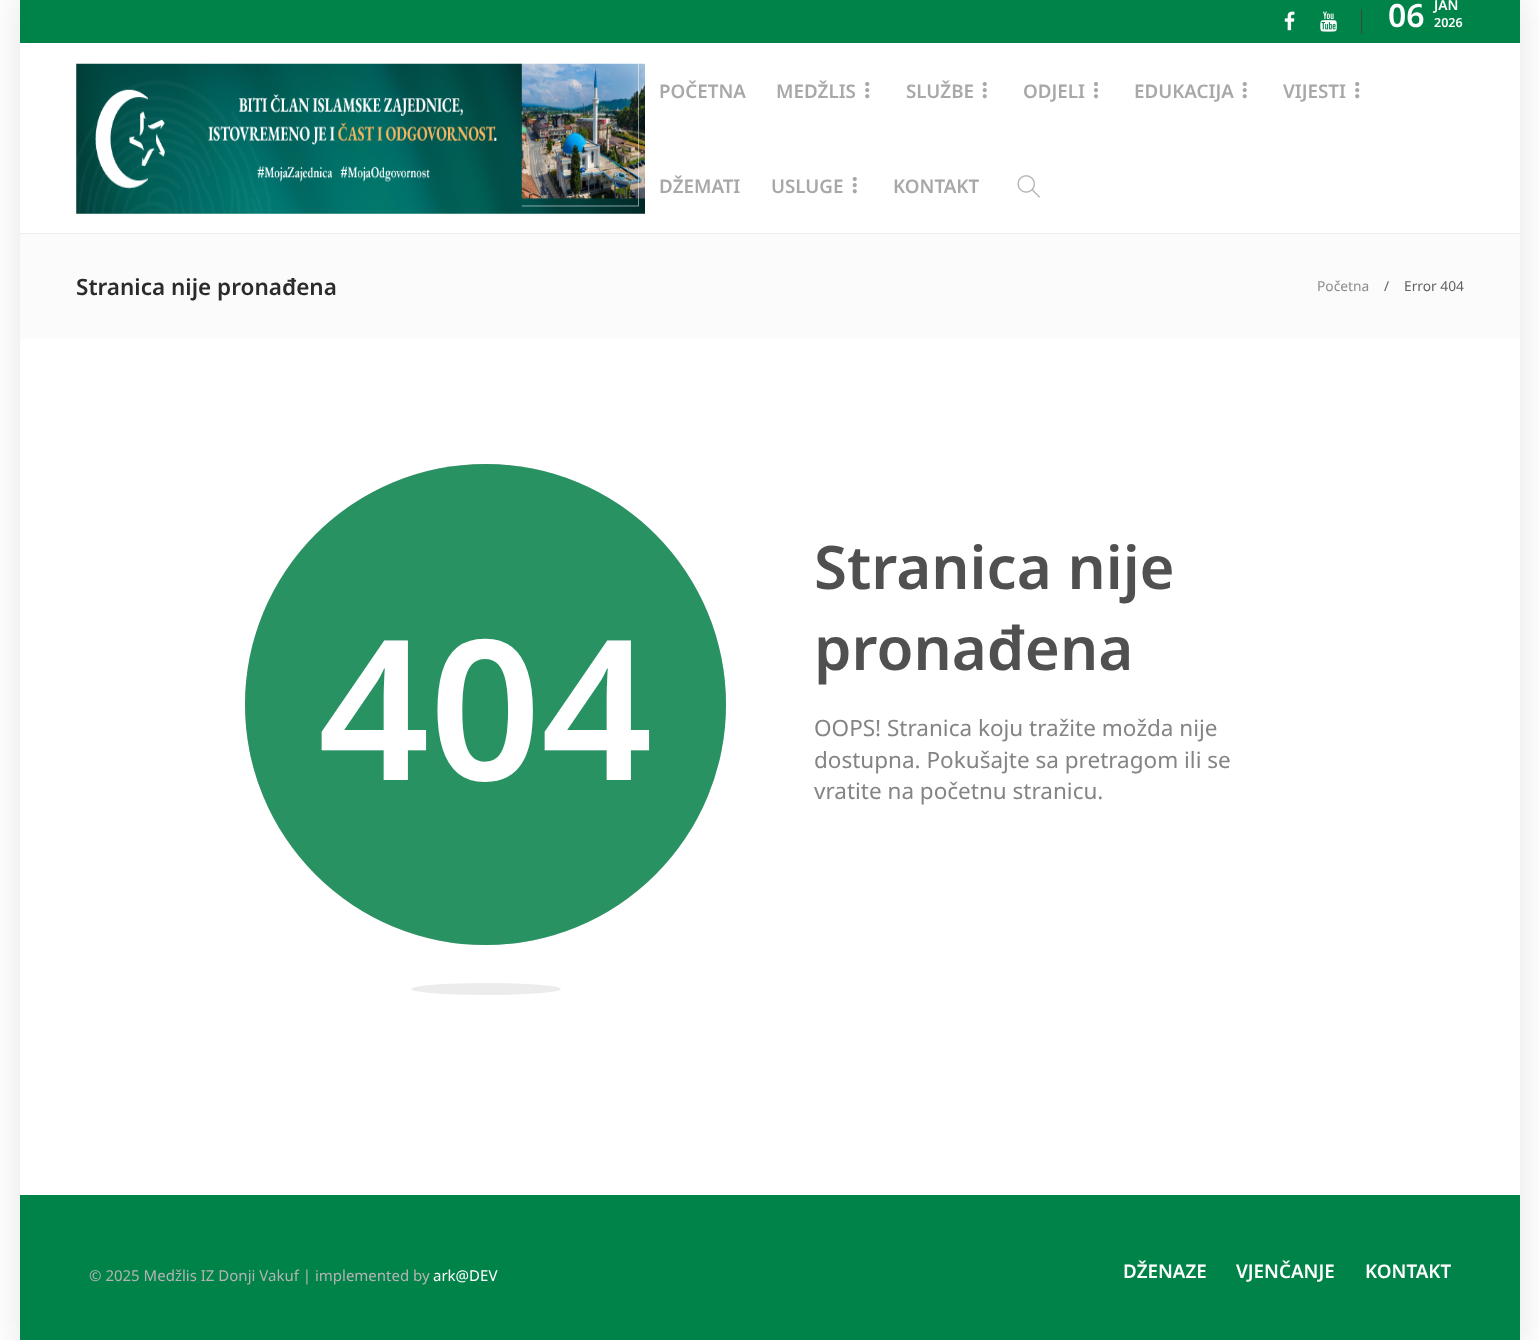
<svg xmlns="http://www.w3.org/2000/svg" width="1539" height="1340">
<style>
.a{font:600 32px Noto Sans;fill:#fff}
.b{font:600 13.75px Noto Sans;fill:#fff}
.c{font:600 12.5px Noto Sans;fill:#fff}
.d{font:600 18.75px Noto Sans;fill:#a8a8a8}
.e{font:600 22.5px Noto Sans;fill:#2b2b2b}
.f{font:13.75px Noto Sans;fill:#8d8d8d}
.g{font:13.75px Noto Sans;fill:#616161}
.h{font:600 195px Noto Sans;fill:#fff}
.i{font:600 60px Noto Sans;fill:#505050}
.j{font:22.5px Noto Sans;fill:#848484}
.k{font:15px Noto Sans;fill:#b4b4b4}
.l{font:15px Noto Sans;fill:#fff}
.m{font:600 18.75px Noto Sans;fill:#fff}
</style>
<defs>
<clipPath id="clip1"><path d="M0 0h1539v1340h-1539zm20-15h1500v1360h-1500z" clip-rule="evenodd"/></clipPath>
</defs>
<rect width="100%" height="100%" fill="#fff"/>
<g clip-path="url(#clip1)">
<path fill="#0000001a" filter="blur(19px)" d="M20 -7h1500v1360H20z"/>
</g>
<path fill="#008348" d="M20 0h1500v43H20z"/>
<path fill="#434343" d="M1361 9h1v25H1361z"/>
<image href="1.png" x="1284" y="11" width="11" height="20"/>
<image href="2.png" x="1320" y="11" width="17" height="21"/>
<path fill="#ebebeb" d="M20 233h1500v1H20z"/>
<image href="3.png" x="76" y="63" width="569" height="151"/>
<image href="4.png" x="865" y="82" width="5" height="17"/>
<image href="5.png" x="982" y="82" width="5" height="17"/>
<image href="6.png" x="1093" y="82" width="5" height="17"/>
<image href="5.png" x="1242" y="82" width="5" height="17"/>
<image href="4.png" x="1355" y="82" width="5" height="17"/>
<image href="5.png" x="852" y="177" width="5" height="17"/>
<image href="7.png" x="1017" y="175" width="23" height="23"/>
<path fill="#fbfbfb" d="M20 234h1500v105H20z"/>
<circle fill="#ccc" cx="485.5" cy="704.5" r="240.5"/>
<circle fill="#008348cc" cx="485.5" cy="704.5" r="240.5"/>
<ellipse fill="#ececec" cx="486" cy="989" rx="75" ry="6"/>
<path fill="#008348" d="M20 1195h1500v145H20z"/>
<text class="a" x="1388" y="27">06</text>
<text class="b" x="1434" y="10">JAN</text>
<text class="c" x="1434" y="27">2026</text>
<text class="d" x="659" y="98">POČETNA</text>
<text class="d" x="776" y="98">MEDŽLIS</text>
<text class="d" x="906" y="98">SLUŽBE</text>
<text class="d" x="1023" y="98">ODJELI</text>
<text class="d" x="1134" y="98">EDUKACIJA</text>
<text class="d" x="1283" y="98">VIJESTI</text>
<text class="d" x="659" y="193">DŽEMATI</text>
<text class="d" x="771" y="193">USLUGE</text>
<text class="d" x="893" y="193">KONTAKT</text>
<text class="e" x="76" y="295">Stranica nije pronađena</text>
<text class="f" x="1317" y="291">Početna</text>
<text class="g" x="1384" y="291">/</text>
<text class="g" x="1404" y="291">Error 404</text>
<text class="h" x="318" y="780">404</text>
<text class="i" x="814" y="589">Stranica nije</text>
<text class="i" x="814" y="670">pronađena</text>
<text class="j" x="814" y="736">OOPS! Stranica koju tražite možda nije</text>
<text class="j" x="814" y="768">dostupna. Pokušajte sa pretragom ili se</text>
<text class="j" x="814" y="799">vratite na početnu stranicu.</text>
<text class="k" x="89" y="1281">© 2025 Medžlis IZ Donji Vakuf | implemented by</text>
<text class="l" x="433" y="1281">ark@DEV</text>
<text class="m" x="1123" y="1278">DŽENAZE</text>
<text class="m" x="1236" y="1278">VJENČANJE</text>
<text class="m" x="1365" y="1278">KONTAKT</text>
</svg>
